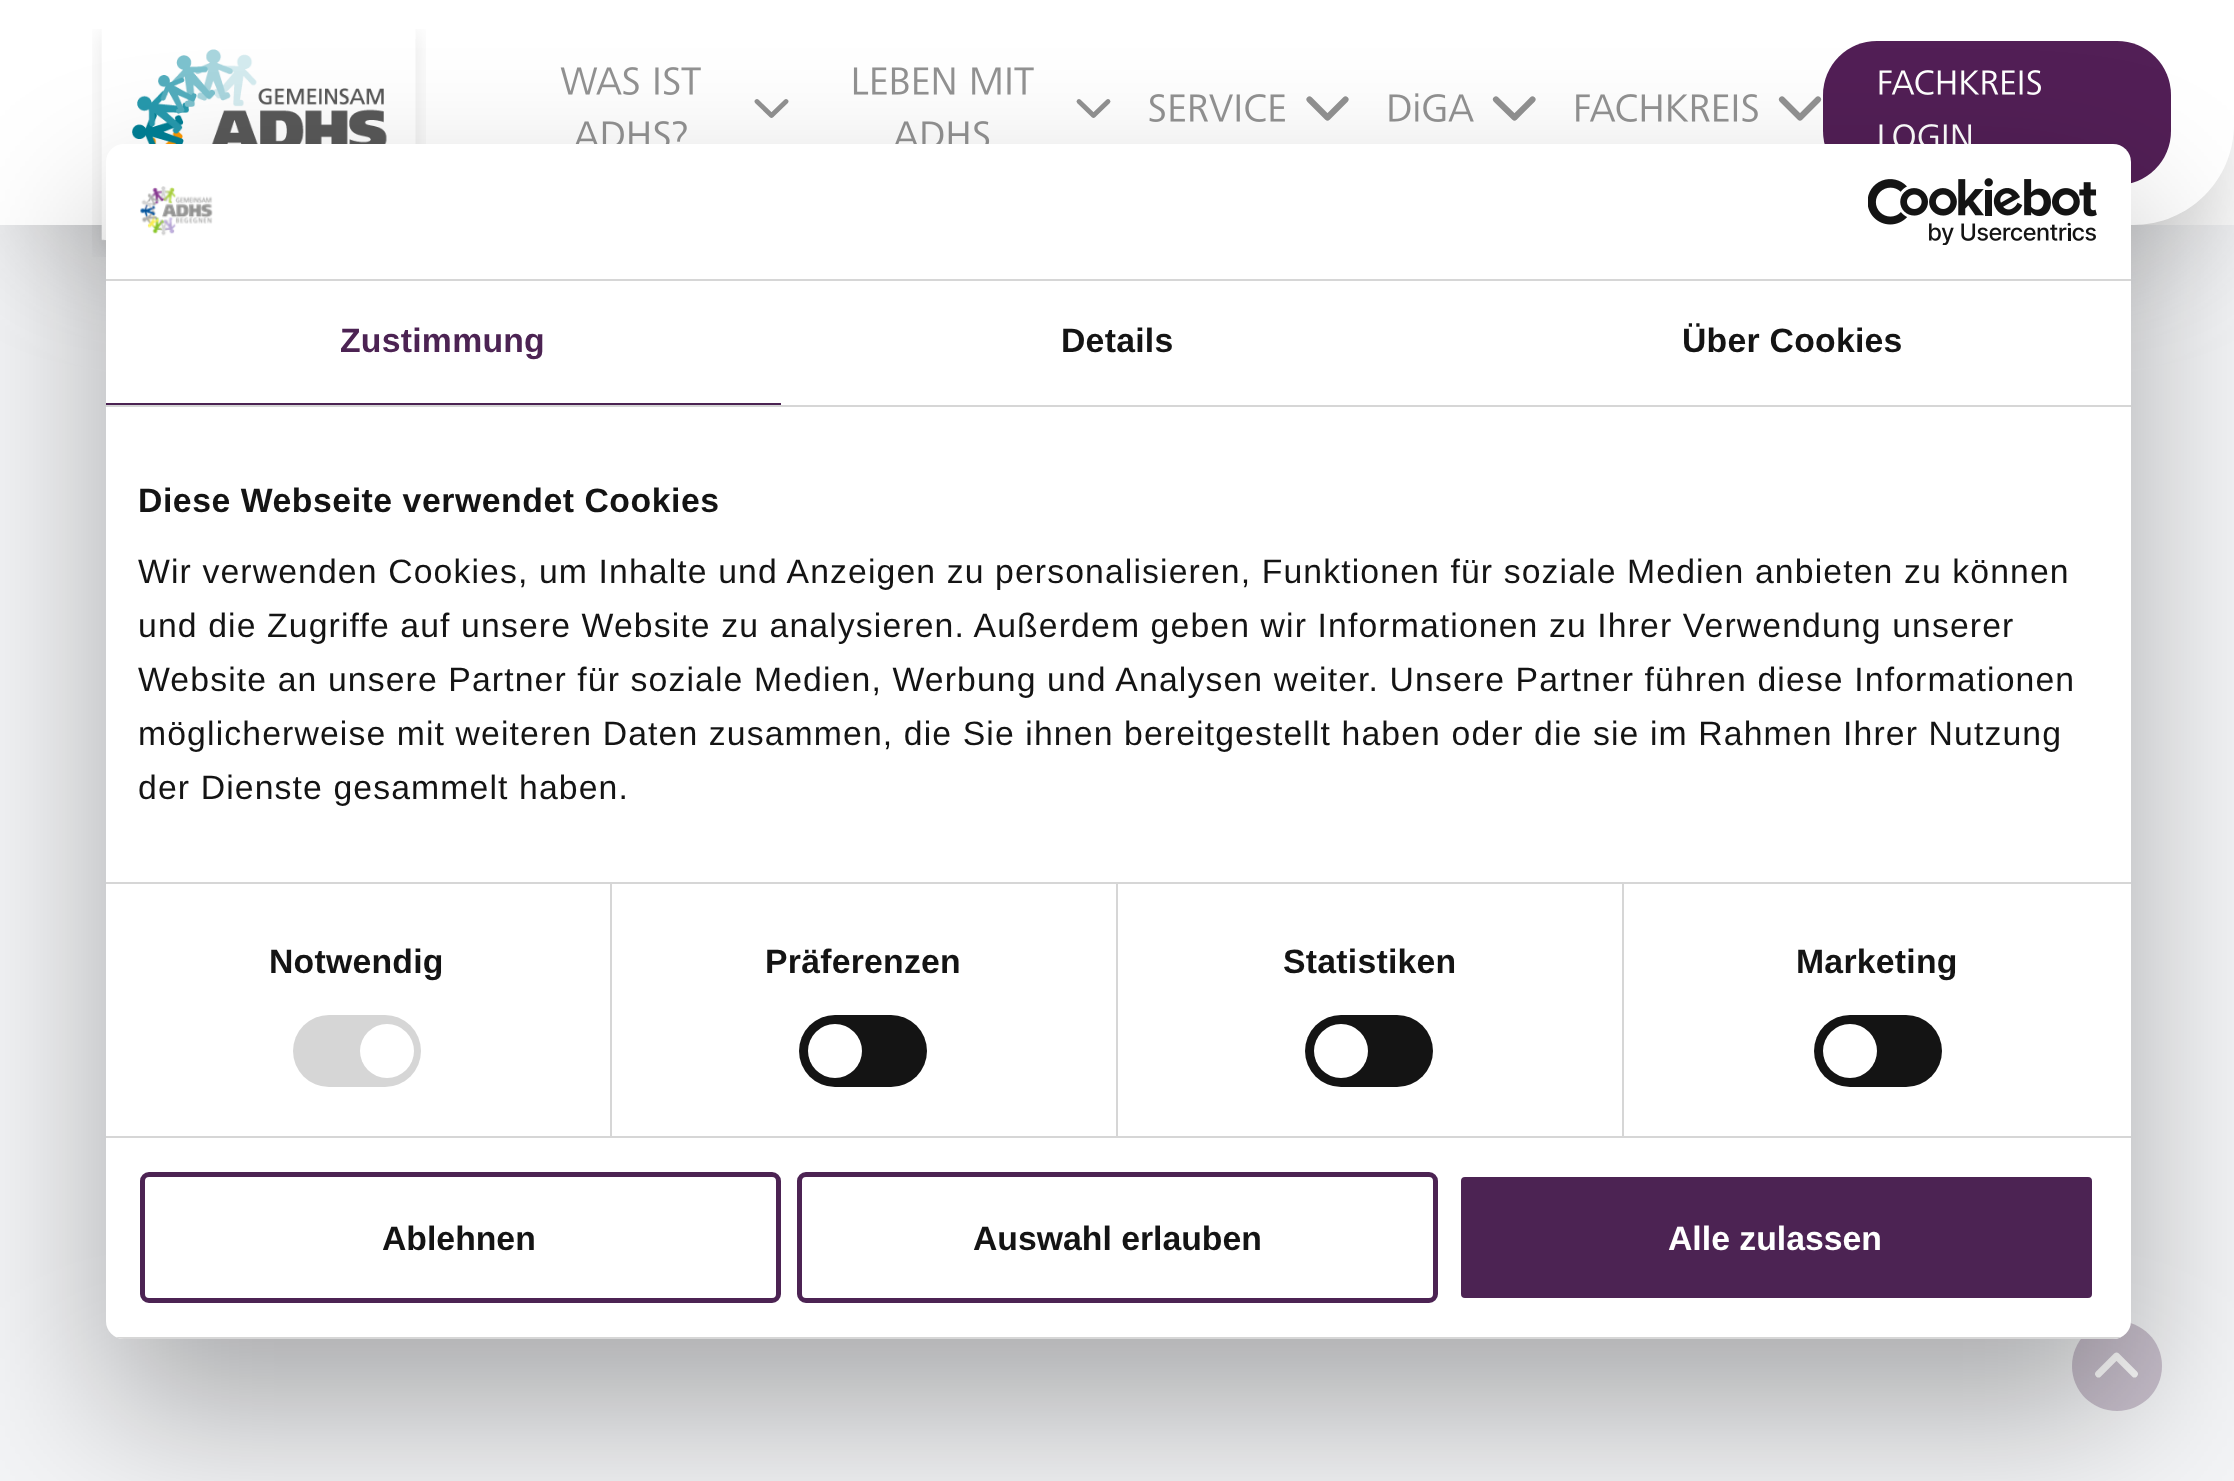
<svg xmlns="http://www.w3.org/2000/svg" width="2234" height="1481">
<style>
.a{font:bold 33.75px Liberation Sans;letter-spacing:0.25px;fill:#4c2353}
.b{font:bold 33.75px Liberation Sans;letter-spacing:0.25px;fill:#141414}
.c{font:bold 33.75px Liberation Sans;letter-spacing:0.55px;fill:#141414}
.d{font:33.75px Liberation Sans;letter-spacing:1.12px;fill:#141414}
.e{font:bold 33.75px Liberation Sans;fill:#141414}
.f{font:bold 33.75px Liberation Sans;fill:#fff}
</style>
<defs>
<clipPath id="clip1"><rect x="106" y="144" width="2025" height="1195" rx="18"/></clipPath>
</defs>
<rect width="100%" height="100%" fill="#fff"/>
<path fill="#f3f4f6" d="M0 225h2234v1256H0z"/>
<rect fill="#00000040" filter="blur(56px)" x="27" y="83" width="2180" height="171" rx="74"/>
<path fill="#fff" d="M0 0h2234v124c0 56-45 101-101 101h-2133z"/>
<image href="1.png" x="92" y="29" width="334" height="228"/>
<image href="2.png" x="560" y="67" width="141" height="28"/>
<image href="3.png" x="575" y="121" width="112" height="23"/>
<path fill="none" stroke="#929292" stroke-width="4.8" stroke-linecap="round" stroke-linejoin="round" d="M757 101.5l14.5 14l14.5-14"/>
<image href="4.png" x="853" y="67" width="181" height="28"/>
<image href="5.png" x="895" y="121" width="95" height="23"/>
<path fill="none" stroke="#929292" stroke-width="4.8" stroke-linecap="round" stroke-linejoin="round" d="M1079 101.5l14.5 14l14.5-14"/>
<image href="6.png" x="1149" y="94" width="136" height="28"/>
<path fill="none" stroke="#929292" stroke-width="6.1" stroke-linecap="round" stroke-linejoin="round" d="M1309.5 99.5l18 18l18-18"/>
<image href="7.png" x="1389" y="93" width="85" height="29"/>
<path fill="none" stroke="#929292" stroke-width="6.1" stroke-linecap="round" stroke-linejoin="round" d="M1496 99.5l18.5 18l18-18"/>
<image href="8.png" x="1576" y="94" width="182" height="28"/>
<path fill="none" stroke="#929292" stroke-width="6.1" stroke-linecap="round" stroke-linejoin="round" d="M1782 99.5l18 18l18-18"/>
<rect fill="#521f56" x="1823" y="41" width="348" height="144" rx="54"/>
<image href="9.png" x="1879" y="70" width="162" height="25"/>
<image href="10.png" x="1879" y="124" width="92" height="20"/>
<path fill="#c9c0cd" d="M2162 1366c0 25-20 45-45 45c-25 0-45-20-45-45c0-25 20-45 45-45c25 0 45 20 45 45z"/>
<path fill="none" stroke="#fff" stroke-width="6.8" stroke-linecap="round" stroke-linejoin="round" d="M2134.5 1374l-18-18l-18 18"/>
<rect fill="#0000004d" filter="blur(76.5px)" x="106" y="216" width="2025" height="1195" rx="18"/>
<rect fill="#fff" x="106" y="144" width="2025" height="1195" rx="18"/>
<path fill="#d6d6d6" d="M106 279h2025v2H106z"/>
<image href="11.png" x="140" y="186" width="73" height="50"/>
<image href="12.png" x="1868" y="178" width="229" height="67"/>
<path fill="#d6d6d6" d="M106 405h2025v2H106z"/>
<path fill="#4c2353" d="M106 403h675v2H106z"/>
<path fill="#d6d6d6" d="M106 882h2025v2H106z"/>
<path fill="#d6d6d6" d="M106 1136h2025v2H106z"/>
<path fill="#d6d6d6" d="M610 884h2v252H610z"/>
<rect fill="#d6d6d6" x="293" y="1015" width="128" height="72" rx="36"/>
<circle fill="#fff" cx="387" cy="1051" r="27"/>
<path fill="#d6d6d6" d="M1116 884h2v252H1116z"/>
<rect fill="#141414" x="799" y="1015" width="128" height="72" rx="36"/>
<circle fill="#fff" cx="835" cy="1051" r="27"/>
<path fill="#d6d6d6" d="M1622 884h2v252H1622z"/>
<rect fill="#141414" x="1305" y="1015" width="128" height="72" rx="36"/>
<circle fill="#fff" cx="1341" cy="1051" r="27"/>
<rect fill="#141414" x="1814" y="1015" width="128" height="72" rx="36"/>
<circle fill="#fff" cx="1850" cy="1051" r="27"/>
<g clip-path="url(#clip1)">
<path fill="#d6d6d6" d="M116 1337h2005v2H116z"/>
</g>
<rect fill="none" stroke="#4c2353" stroke-width="5" x="142.5" y="1174.5" width="636" height="126" rx="6.5"/>
<rect fill="none" stroke="#4c2353" stroke-width="5" x="799.5" y="1174.5" width="636" height="126" rx="6.5"/>
<rect fill="#4c2353" stroke="#fff" stroke-width="5" x="1458.5" y="1174.5" width="636" height="126" rx="6.5"/>
<text class="a" x="340" y="352">Zustimmung</text>
<text class="b" x="1061" y="352">Details</text>
<text class="b" x="1682" y="352">Über Cookies</text>
<text class="c" x="138" y="512">Diese Webseite verwendet Cookies</text>
<text class="d" x="138" y="583">Wir verwenden Cookies, um Inhalte und Anzeigen zu personalisieren, Funktionen für soziale Medien anbieten zu können</text>
<text class="d" x="138" y="637">und die Zugriffe auf unsere Website zu analysieren. Außerdem geben wir Informationen zu Ihrer Verwendung unserer</text>
<text class="d" x="138" y="691">Website an unsere Partner für soziale Medien, Werbung und Analysen weiter. Unsere Partner führen diese Informationen</text>
<text class="d" x="138" y="745">möglicherweise mit weiteren Daten zusammen, die Sie ihnen bereitgestellt haben oder die sie im Rahmen Ihrer Nutzung</text>
<text class="d" x="138" y="799">der Dienste gesammelt haben.</text>
<text class="b" x="269" y="973">Notwendig</text>
<text class="b" x="765" y="973">Präferenzen</text>
<text class="b" x="1283" y="973">Statistiken</text>
<text class="b" x="1796" y="973">Marketing</text>
<text class="e" x="382" y="1250">Ablehnen</text>
<text class="e" x="973" y="1250">Auswahl erlauben</text>
<text class="f" x="1668" y="1250">Alle zulassen</text>
</svg>
